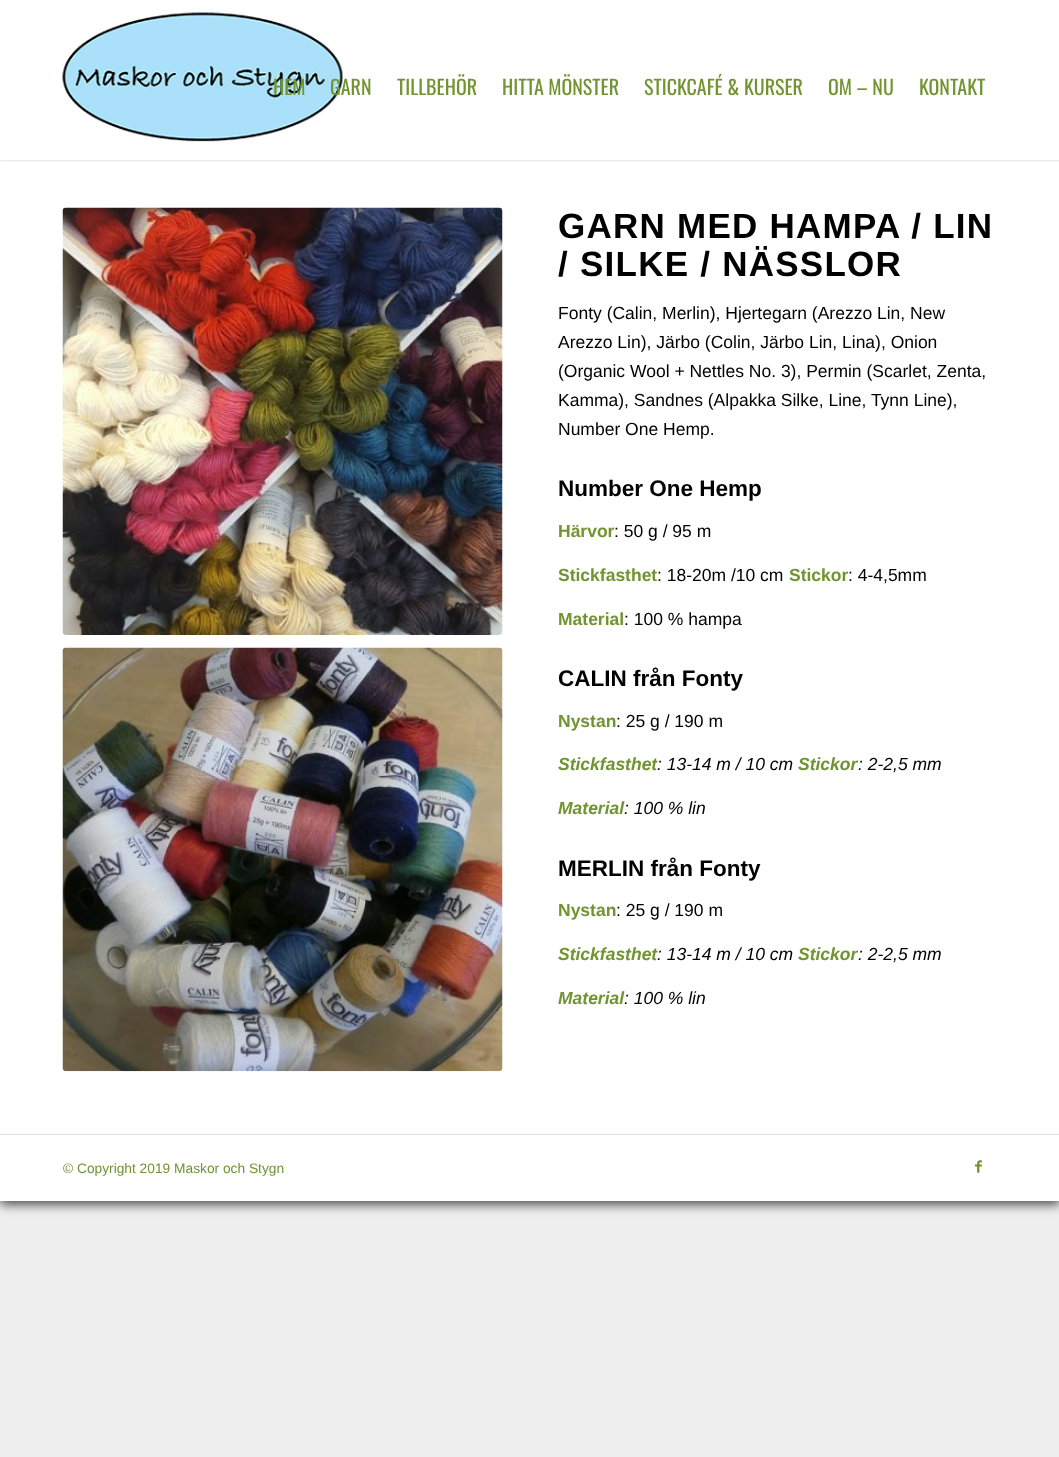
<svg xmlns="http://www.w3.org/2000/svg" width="1059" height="1457">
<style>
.a{font:20px Oswald;fill:#719430}
.b{font:bold 35px Liberation Sans;letter-spacing:1.25px;fill:#000}
.c{font:17.5px Liberation Sans;fill:#000}
.d{font:bold 22.5px Liberation Sans;fill:#000}
.e{font:bold 17.5px Liberation Sans;fill:#719430}
.f{font:italic bold 17.5px Liberation Sans;fill:#719430}
.g{font:italic 17.5px Liberation Sans;fill:#000}
.h{font:13.75px Liberation Sans;fill:#719430}
</style>
<defs>
<clipPath id="clip1"><path d="M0 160h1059v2H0z"/></clipPath>
</defs>
<rect width="100%" height="100%" fill="#eee"/>
<path fill="#000000bf" filter="blur(6px)" d="M0 3h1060v1201H0z"/>
<path fill="#fff" d="M0 0h1059v1201H0z"/>
<g clip-path="url(#clip1)">
<path fill="#0000001a" filter="blur(1px)" d="M-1 -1h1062v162H-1z"/>
</g>
<image href="1.png" x="62" y="12" width="281" height="130"/>
<image href="2.png" x="62" y="207" width="441" height="428"/>
<image href="3.png" x="62" y="647" width="441" height="425"/>
<path fill="#e1e1e1" d="M0 1134h1059v1H0z"/>
<image href="4.png" x="975" y="1160" width="7" height="13"/>
<text class="a" x="273" y="95">HEM</text>
<text class="a" x="330" y="95">GARN</text>
<text class="a" x="397" y="95">TILLBEHÖR</text>
<text class="a" x="502" y="95">HITTA MÖNSTER</text>
<text class="a" x="644" y="95">STICKCAFÉ &amp; KURSER</text>
<text class="a" x="828" y="95">OM – NU</text>
<text class="a" x="919" y="95">KONTAKT</text>
<text class="b" x="558" y="238">GARN MED HAMPA / LIN</text>
<text class="b" x="558" y="276">/ SILKE / NÄSSLOR</text>
<text class="c" x="558" y="319">Fonty (Calin, Merlin), Hjertegarn (Arezzo Lin, New</text>
<text class="c" x="558" y="348">Arezzo Lin), Järbo (Colin, Järbo Lin, Lina), Onion</text>
<text class="c" x="558" y="377">(Organic Wool + Nettles No. 3), Permin (Scarlet, Zenta,</text>
<text class="c" x="558" y="406">Kamma), Sandnes (Alpakka Silke, Line, Tynn Line),</text>
<text class="c" x="558" y="435">Number One Hemp.</text>
<text class="d" x="558" y="496">Number One Hemp</text>
<text class="e" x="558" y="537">Härvor</text>
<text class="c" x="614" y="537">: 50 g / 95 m</text>
<text class="e" x="558" y="581">Stickfasthet</text>
<text class="c" x="657" y="581">: 18-20m /10 cm</text>
<text class="e" x="789" y="581">Stickor</text>
<text class="c" x="848" y="581">: 4-4,5mm</text>
<text class="e" x="558" y="625">Material</text>
<text class="c" x="624" y="625">: 100 % hampa</text>
<text class="d" x="558" y="686">CALIN från Fonty</text>
<text class="e" x="558" y="727">Nystan</text>
<text class="c" x="616" y="727">: 25 g / 190 m</text>
<text class="f" x="558" y="770">Stickfasthet</text>
<text class="g" x="657" y="770">: 13-14 m / 10 cm</text>
<text class="f" x="798" y="770">Stickor</text>
<text class="g" x="858" y="770">: 2-2,5 mm</text>
<text class="f" x="558" y="814">Material</text>
<text class="g" x="624" y="814">: 100 % lin</text>
<text class="d" x="558" y="876">MERLIN från Fonty</text>
<text class="e" x="558" y="916">Nystan</text>
<text class="c" x="616" y="916">: 25 g / 190 m</text>
<text class="f" x="558" y="960">Stickfasthet</text>
<text class="g" x="657" y="960">: 13-14 m / 10 cm</text>
<text class="f" x="798" y="960">Stickor</text>
<text class="g" x="858" y="960">: 2-2,5 mm</text>
<text class="f" x="558" y="1004">Material</text>
<text class="g" x="624" y="1004">: 100 % lin</text>
<text class="h" x="63" y="1173">© Copyright 2019 Maskor och Stygn</text>
</svg>
